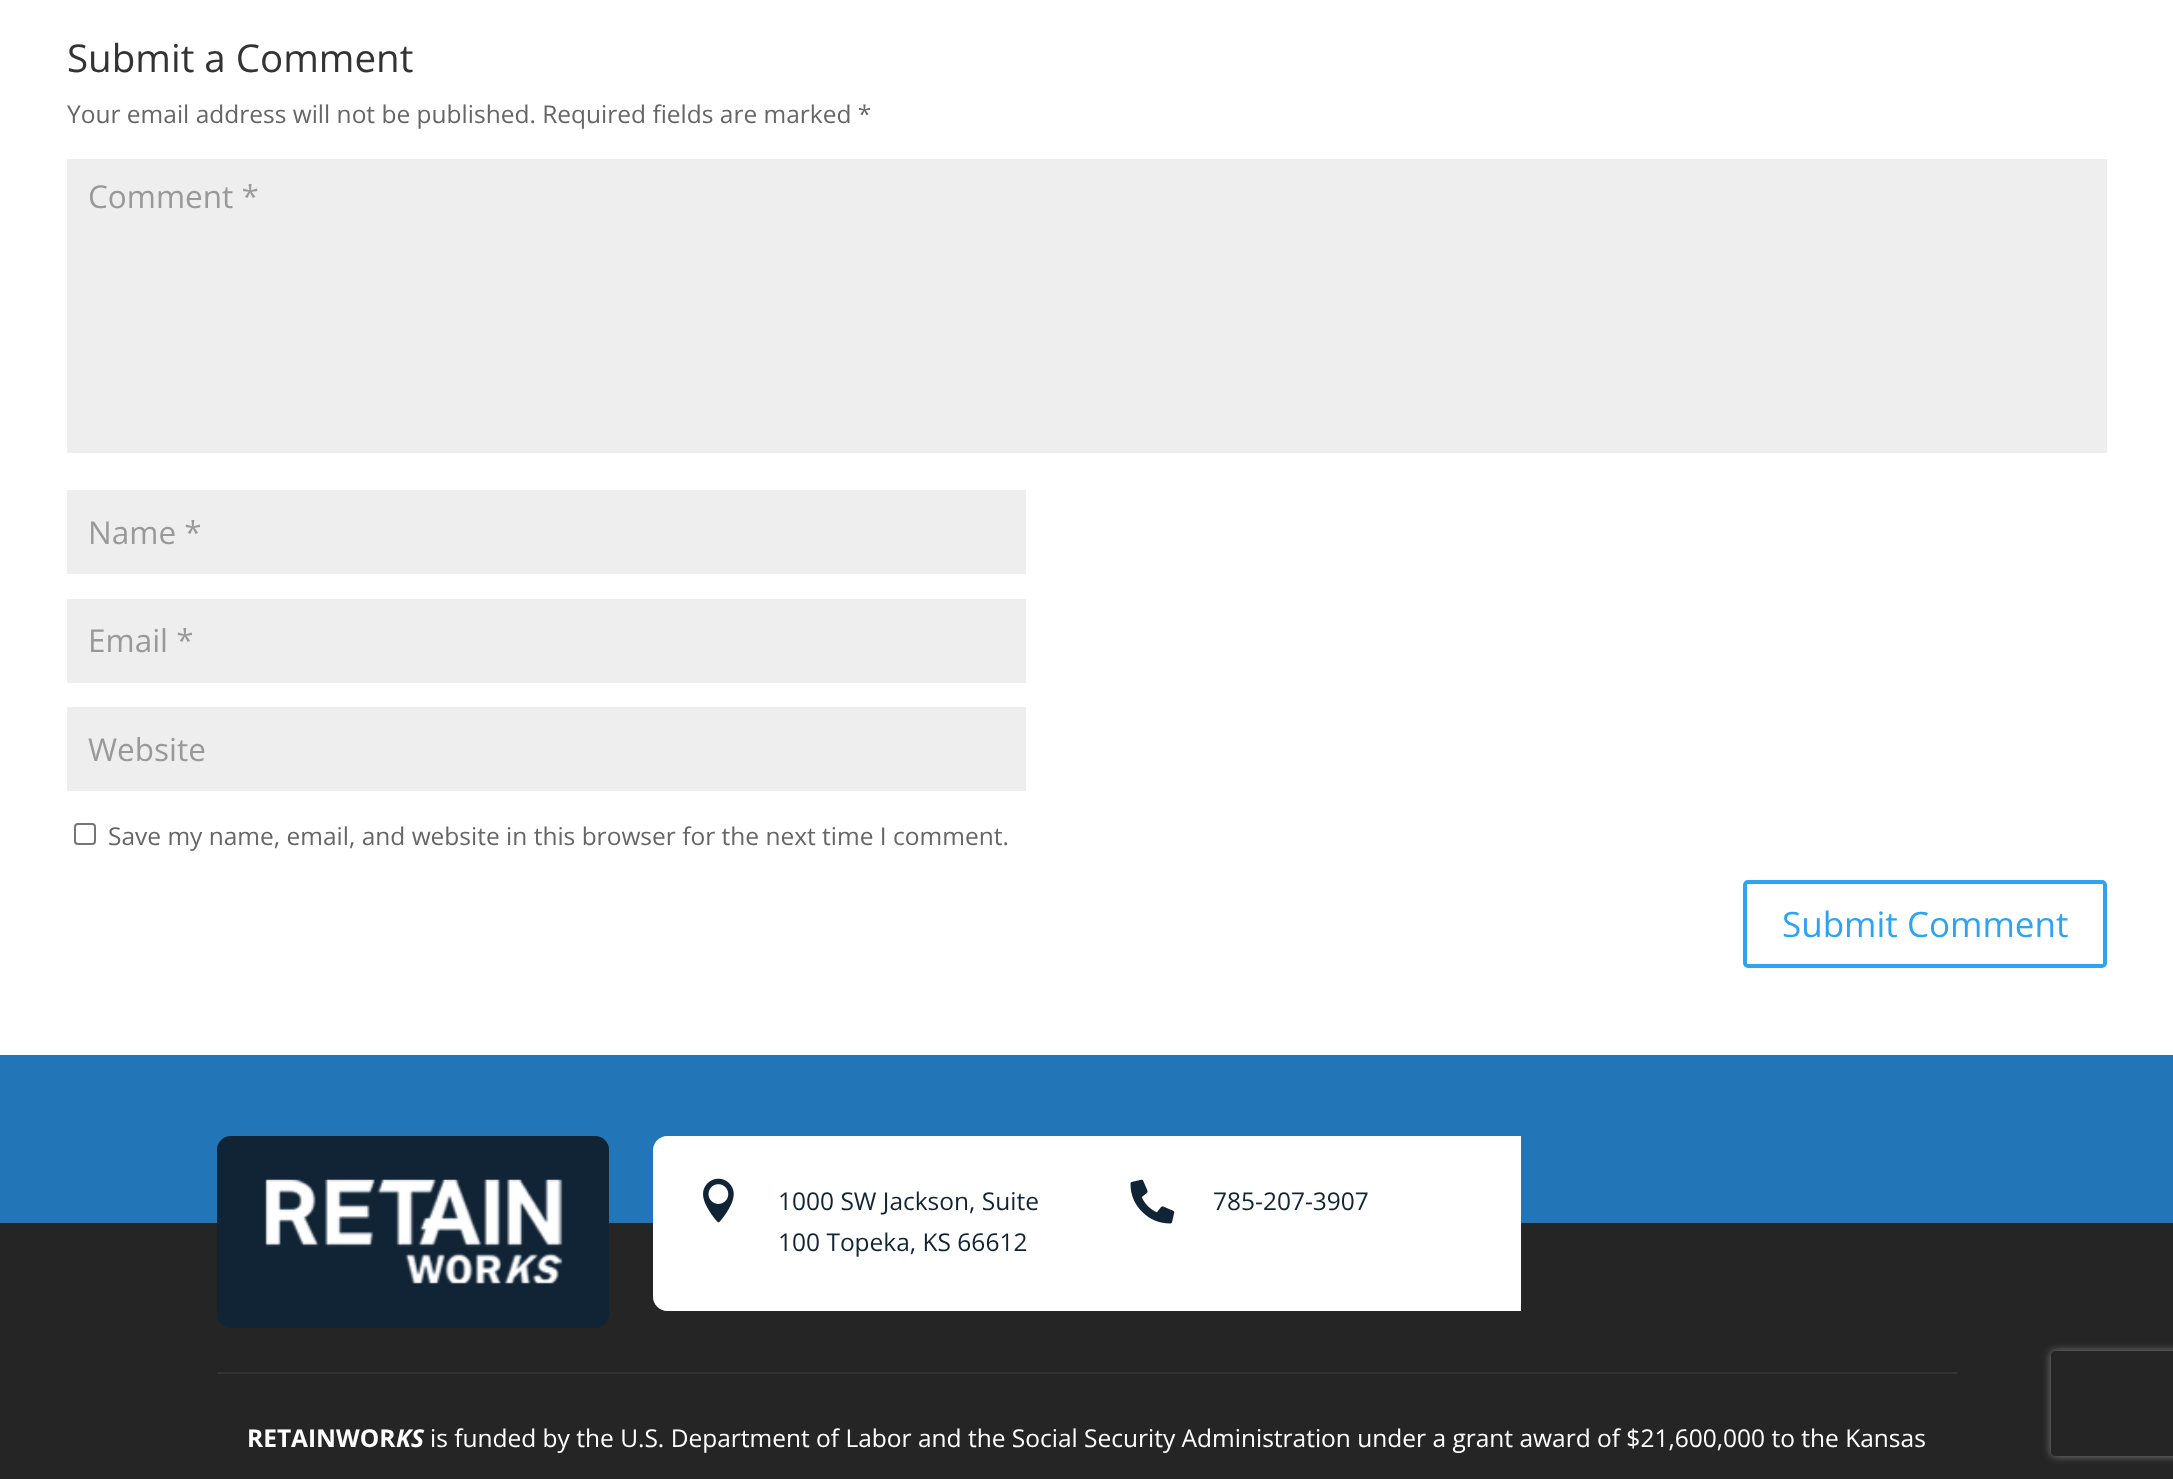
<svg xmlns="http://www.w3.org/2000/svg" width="2173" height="1479">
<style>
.a{font:38.5px Open Sans;fill:#333}
.b{font:24.5px Open Sans;fill:#666}
.c{font:31.5px Open Sans;fill:#999}
.d{font:35px Open Sans;fill:#2ea3f2}
.e{font:24.5px Open Sans;fill:#102436}
.f{font:bold 24.5px Open Sans;fill:#fff}
.g{font:italic bold 24.5px Open Sans;fill:#fff}
.h{font:24.5px Open Sans;fill:#fff}
</style>
<defs>
<clipPath id="clip1"><path d="M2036 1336h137v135h-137zm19 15h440c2 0 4 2 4 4v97c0 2-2 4-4 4h-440c-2 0-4-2-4-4v-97c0-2 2-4 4-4z" clip-rule="evenodd"/></clipPath>
</defs>
<rect width="100%" height="100%" fill="#fff"/>
<path fill="#eee" d="M67 159h2040v294H67z"/>
<path fill="#eee" d="M67 490h959v84H67z"/>
<path fill="#eee" d="M67 599h959v84H67z"/>
<path fill="#eee" d="M67 707h959v84H67z"/>
<rect fill="none" stroke="#767676" stroke-width="2" x="75" y="824" width="20" height="20" rx="3"/>
<rect fill="none" stroke="#2ea3f2" stroke-width="4" x="1745" y="882" width="360" height="84" rx="3"/>
<path fill="#2275b6" d="M0 1055h2173v168H0z"/>
<path fill="#252525" d="M0 1223h2173v256H0z"/>
<rect fill="#102436" x="217" y="1136" width="392" height="192" rx="14"/>
<image href="1.png" x="265" y="1179" width="298" height="105"/>
<path fill="#fff" d="M667 1136h420v175h-420c-7.5 0-14-6.5-14-14v-147c0-7.5 6.5-14 14-14z"/>
<image href="2.png" x="703" y="1178" width="31" height="45"/>
<path fill="#fff" d="M1087 1136h434v175H1087z"/>
<image href="3.png" x="1130" y="1179" width="45" height="45"/>
<path fill="#333" d="M217 1372h1740v2H217z"/>
<g clip-path="url(#clip1)">
<rect fill="#808080" filter="blur(4.5px)" x="2051" y="1351" width="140" height="105" rx="4"/>
</g>
<text class="a" x="67" y="72">Submit a Comment</text>
<text class="b" x="67" y="123">Your email address will not be published. Required fields are marked *</text>
<text class="c" x="88" y="208">Comment *</text>
<text class="c" x="88" y="544">Name *</text>
<text class="c" x="88" y="652">Email *</text>
<text class="c" x="88" y="761">Website</text>
<text class="b" x="108" y="845">Save my name, email, and website in this browser for the next time I comment.</text>
<text class="d" x="1782" y="937">Submit Comment</text>
<text class="e" x="778" y="1210">1000 SW Jackson, Suite</text>
<text class="e" x="778" y="1251">100 Topeka, KS 66612</text>
<text class="e" x="1213" y="1210">785-207-3907</text>
<text class="f" x="247" y="1447">RETAINWOR</text>
<text class="g" x="396" y="1447">KS</text>
<text class="h" x="430" y="1447">is funded by the U.S. Department of Labor and the Social Security Administration under a grant award of $21,600,000 to the Kansas</text>
</svg>
